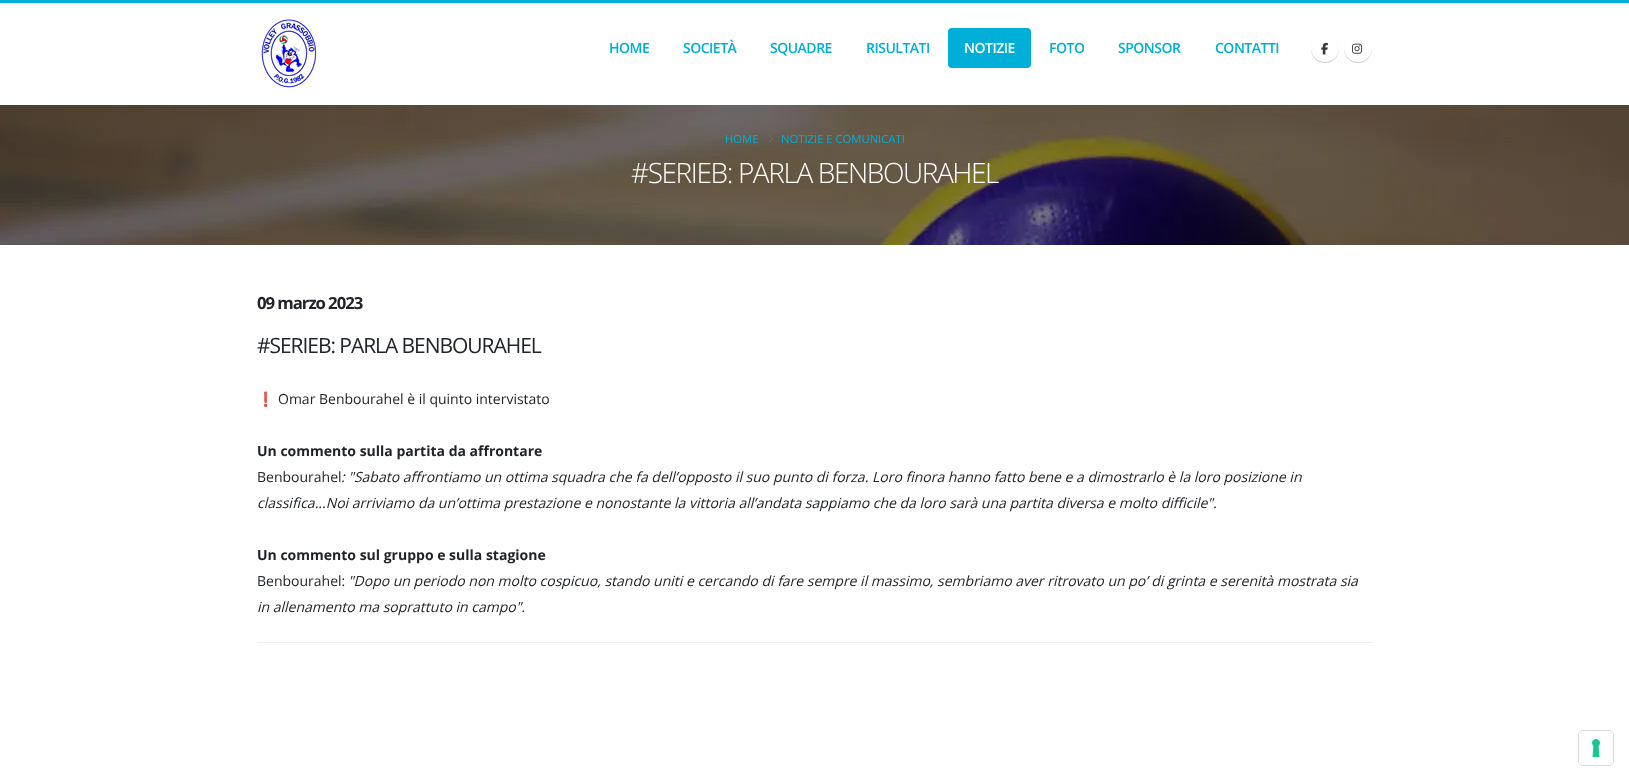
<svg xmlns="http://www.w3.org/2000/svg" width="1629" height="781">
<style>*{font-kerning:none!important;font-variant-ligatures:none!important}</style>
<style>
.a{font:600 14px Open Sans;letter-spacing:-0.5px;fill:#00afd8}
.b{font:600 14px Open Sans;letter-spacing:-0.5px;fill:#fff}
.c{font:11.25px Open Sans;fill:#00afd8}
.d{font:300 28px Open Sans;letter-spacing:-1.4px;fill:#fff}
.e{font:bold 16.75px Open Sans;letter-spacing:-1.05px;fill:#212529}
.f{font:21px Open Sans;letter-spacing:-1.05px;fill:#212529}
.g{font:14px Noto Color Emoji;fill:#212529}
.h{font:14px Open Sans;fill:#212529}
.i{font:bold 14px Open Sans;fill:#212529}
.j{font:italic 14px Open Sans;fill:#212529}
</style>
<rect width="100%" height="100%" fill="#fff"/>
<path fill="#00afd8" d="M0 0h1629v3H0z"/>
<image href="1.png" x="261" y="19" width="56" height="69"/>
<rect fill="#00afd8" x="948" y="28" width="83" height="40" rx="4"/>
<rect fill="#00000033" filter="blur(0.5px)" x="1311" y="35" width="28" height="28" rx="14"/>
<circle fill="#fff" cx="1325" cy="48" r="14"/>
<image href="2.png" x="1321" y="42" width="7" height="13"/>
<rect fill="#00000033" filter="blur(0.5px)" x="1344" y="35" width="28" height="28" rx="14"/>
<circle fill="#fff" cx="1358" cy="48" r="14"/>
<image href="3.png" x="1352" y="43" width="11" height="11"/>
<image href="4.png" x="0" y="105" width="1629" height="140"/>
<image href="5.png" x="768" y="135" width="5" height="8"/>
<path fill="#f0f0f0" d="M257 642h1116v1H257z"/>
<rect fill="none" stroke="#d9d9d9" x="1578.5" y="730.5" width="35" height="35" rx="4.5"/>
<rect fill="#fff" x="1579" y="731" width="34" height="34" rx="4"/>
<image href="6.png" x="1592" y="739" width="8" height="18"/>
<text class="a" x="609" y="53">HOME</text>
<text class="a" x="683" y="53">SOCIETÀ</text>
<text class="a" x="770" y="53">SQUADRE</text>
<text class="a" x="866" y="53">RISULTATI</text>
<text class="b" x="964" y="53">NOTIZIE</text>
<text class="a" x="1049" y="53">FOTO</text>
<text class="a" x="1118" y="53">SPONSOR</text>
<text class="a" x="1215" y="53">CONTATTI</text>
<text class="c" x="725" y="143">HOME</text>
<text class="c" x="781" y="143">NOTIZIE E COMUNICATI</text>
<text class="d" x="631" y="183">#SERIEB: PARLA BENBOURAHEL</text>
<text class="e" x="257" y="309">09 marzo 2023</text>
<text class="f" x="257" y="353">#SERIEB: PARLA BENBOURAHEL</text>
<text class="g" x="257" y="404">❗️</text>
<text class="h" x="278" y="404">Omar Benbourahel è il quinto intervistato</text>
<text class="i" x="257" y="456">Un commento sulla partita da affrontare</text>
<text class="h" x="257" y="482">Benbourahel</text>
<text class="j" x="341" y="482">: "Sabato affrontiamo un ottima squadra che fa dell’opposto il suo punto di forza. Loro finora hanno fatto bene e a dimostrarlo è la loro posizione in</text>
<text class="j" x="257" y="508">classifica...Noi arriviamo da un’ottima prestazione e nonostante la vittoria all’andata sappiamo che da loro sarà una partita diversa e molto difficile".</text>
<text class="i" x="257" y="560">Un commento sul gruppo e sulla stagione</text>
<text class="h" x="257" y="586">Benbourahel:</text>
<text class="j" x="348" y="586">"Dopo un periodo non molto cospicuo, stando uniti e cercando di fare sempre il massimo, sembriamo aver ritrovato un po’ di grinta e serenità mostrata sia</text>
<text class="j" x="257" y="612">in allenamento ma soprattuto in campo".</text>
</svg>
